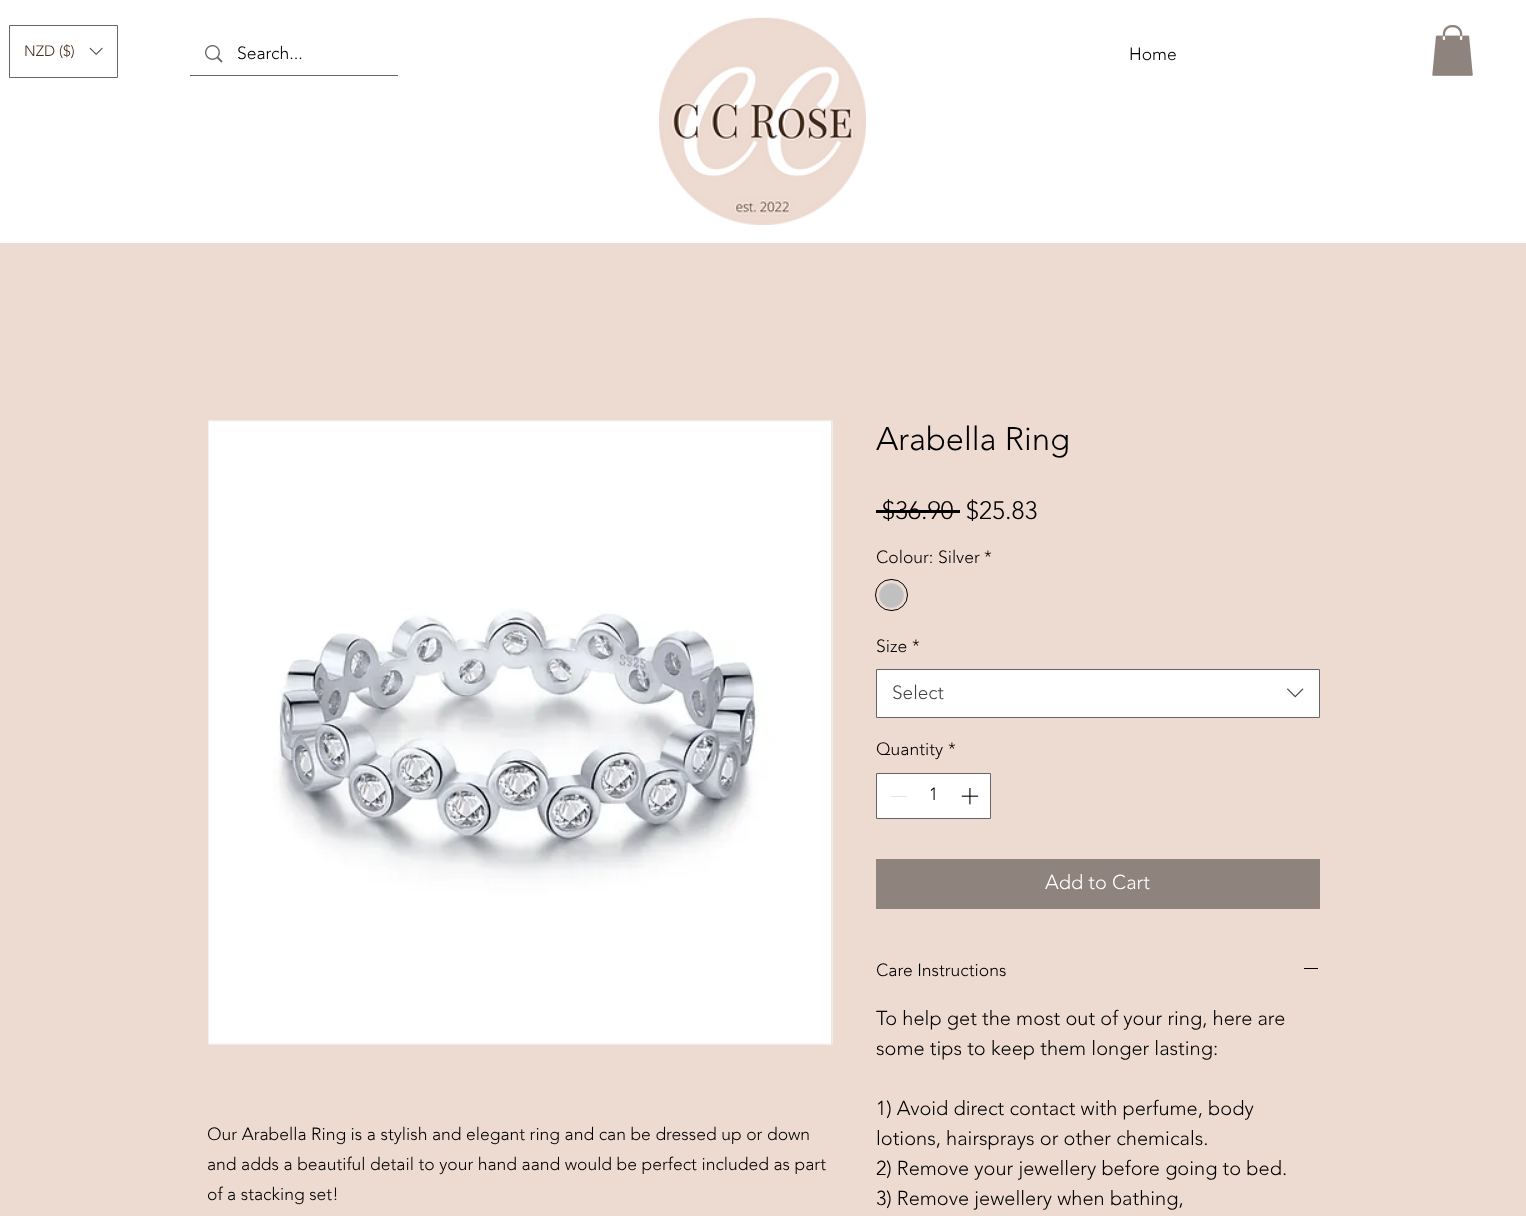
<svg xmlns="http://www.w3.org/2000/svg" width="1526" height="1216">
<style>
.a{font:300 15px 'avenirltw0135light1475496';fill:#473023}
.b{font:300 17.5px 'avenirltw0135light1475496';fill:#000}
.c{font:300 32.5px 'avenirltw0135light1475496';fill:#000}
.d{font:300 25px 'avenirltw0135light1475496';fill:#000}
.e{font:300 19px 'avenirltw0135light1475496';fill:#444}
.f{font:300 20px 'avenirltw0135light1475496';fill:#fff}
.g{font:300 20px 'avenirltw0135light1475496';fill:#000}
</style>
<defs>
<clipPath id="clip1"><path d="M208 1120h625v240H208z"/></clipPath>
</defs>
<rect width="100%" height="100%" fill="#eddad1"/>
<path fill="#fff" d="M0 0h1526v243H0z"/>
<path fill="none" stroke="#666" d="M9.5 25.5h108v52H9.5z"/>
<image href="1.png" x="89" y="47" width="14" height="8"/>
<path fill="#666" d="M190 75h208v1H190z"/>
<image href="2.png" x="205" y="45" width="18" height="18"/>
<image href="3.png" x="659" y="17" width="207" height="208"/>
<image href="4.png" x="1432" y="25" width="41" height="51"/>
<path fill="none" stroke="#ededed" d="M208.5 420.5h624v624H208.5z"/>
<image href="5.png" x="208" y="421" width="624" height="623"/>
<path fill="#000" d="M876 510h84v3H876z"/>
<rect fill="none" stroke="#000" x="875.5" y="579.5" width="32" height="31" rx="15.5"/>
<circle fill="#c0c0c0" stroke="#c9c9c9" cx="891.5" cy="595.5" r="12"/>
<path fill="#fff" stroke="#666" d="M876.5 669.5h443v48H876.5z"/>
<image href="6.png" x="1287" y="688" width="17" height="10"/>
<path fill="#fff" stroke="#666" d="M876.5 773.5h114v45H876.5z"/>
<path fill="#e3e3e3" d="M891 796h16v1H891z"/>
<image href="7.png" x="961" y="788" width="18" height="17"/>
<path fill="#8e837d" d="M876 859h444v50H876z"/>
<path fill="#000" d="M1304 968h14v1H1304z"/>
<text class="a" x="24" y="56">NZD ($)</text>
<text class="b" x="237" y="59">Search...</text>
<text class="b" x="1129" y="60">Home</text>
<g clip-path="url(#clip1)">
<text class="b" x="207" y="1140">Our Arabella Ring is a stylish and elegant ring and can be dressed up or down</text>
</g>
<text class="b" x="207" y="1170">and adds a beautiful detail to your hand aand would be perfect included as part</text>
<text class="b" x="207" y="1200">of a stacking set!</text>
<text class="c" x="876" y="450">Arabella Ring</text>
<text class="d" x="882" y="519">$36.90</text>
<text class="d" x="966" y="519">$25.83</text>
<text class="b" x="876" y="563">Colour: Silver</text>
<text class="b" x="984" y="563">*</text>
<text class="b" x="876" y="652">Size</text>
<text class="b" x="912" y="652">*</text>
<text class="e" x="892" y="699">Select</text>
<text class="b" x="876" y="755">Quantity</text>
<text class="b" x="948" y="755">*</text>
<text class="b" x="929" y="800">1</text>
<text class="f" x="1045" y="889">Add to Cart</text>
<text class="b" x="876" y="976">Care Instructions</text>
<text class="g" x="876" y="1025">To help get the most out of your ring, here are</text>
<text class="g" x="876" y="1055">some tips to keep them longer lasting:</text>
<text class="g" x="876" y="1115">1) Avoid direct contact with perfume, body</text>
<text class="g" x="876" y="1145">lotions, hairsprays or other chemicals.</text>
<text class="g" x="876" y="1175">2) Remove your jewellery before going to bed.</text>
<text class="g" x="876" y="1205">3) Remove jewellery when bathing,</text>
</svg>
